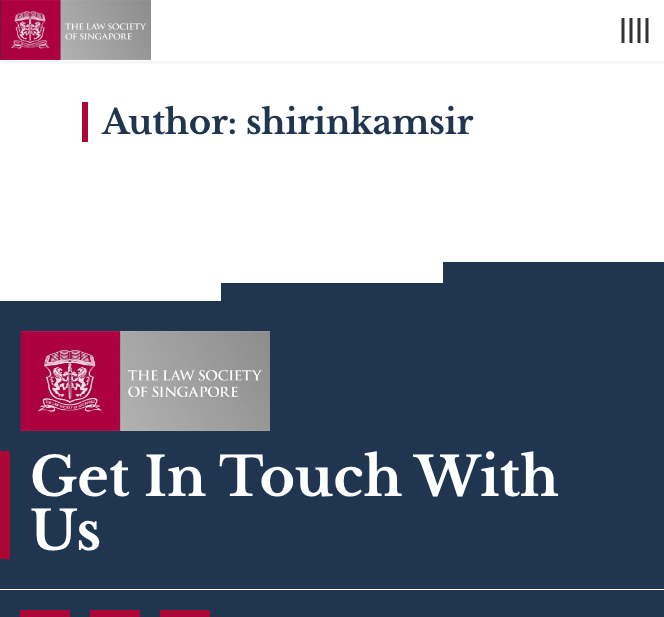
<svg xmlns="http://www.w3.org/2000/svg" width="664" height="617">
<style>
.a{font:bold 34px Libre Baskerville;letter-spacing:-0.3px;fill:#1f3550}
.b{font:bold 54px Libre Baskerville;fill:#fff}
</style>
<defs>
<clipPath id="clip1"><path d="M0 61h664v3H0z"/></clipPath>
</defs>
<rect width="100%" height="100%" fill="#fff"/>
<g clip-path="url(#clip1)">
<path fill="#0000001a" filter="blur(3px)" d="M0 0h664v61H0z"/>
</g>
<image href="1.png" x="0" y="0" width="151" height="60"/>
<path fill="none" stroke="#333" stroke-width="3" d="M623 18v25m8-25v25m8-25v25m8-25v25"/>
<path fill="#ab0635" d="M82 102h6v40H82z"/>
<path fill="#1f3550" d="M443 262h221v60H443z"/>
<path fill="#1f3550" d="M221 283h222v39H221z"/>
<path fill="#1f3550" d="M0 301h221v21H0z"/>
<path fill="#1f3550" d="M0 322h664v295H0z"/>
<path fill="#fff" d="M0 589h664v1H0z"/>
<image href="2.png" x="20" y="331" width="250" height="100"/>
<path fill="#ab0635" d="M0 451h10v108H0z"/>
<path fill="#ab0635" d="M20 610h50v7H20z"/>
<path fill="#ab0635" d="M90 610h50v7H90z"/>
<path fill="#ab0635" d="M160 610h50v7H160z"/>
<text class="a" x="102" y="134">Author: shirinkamsir</text>
<text class="b" x="30" y="496">Get In Touch With</text>
<text class="b" x="30" y="550">Us</text>
</svg>
